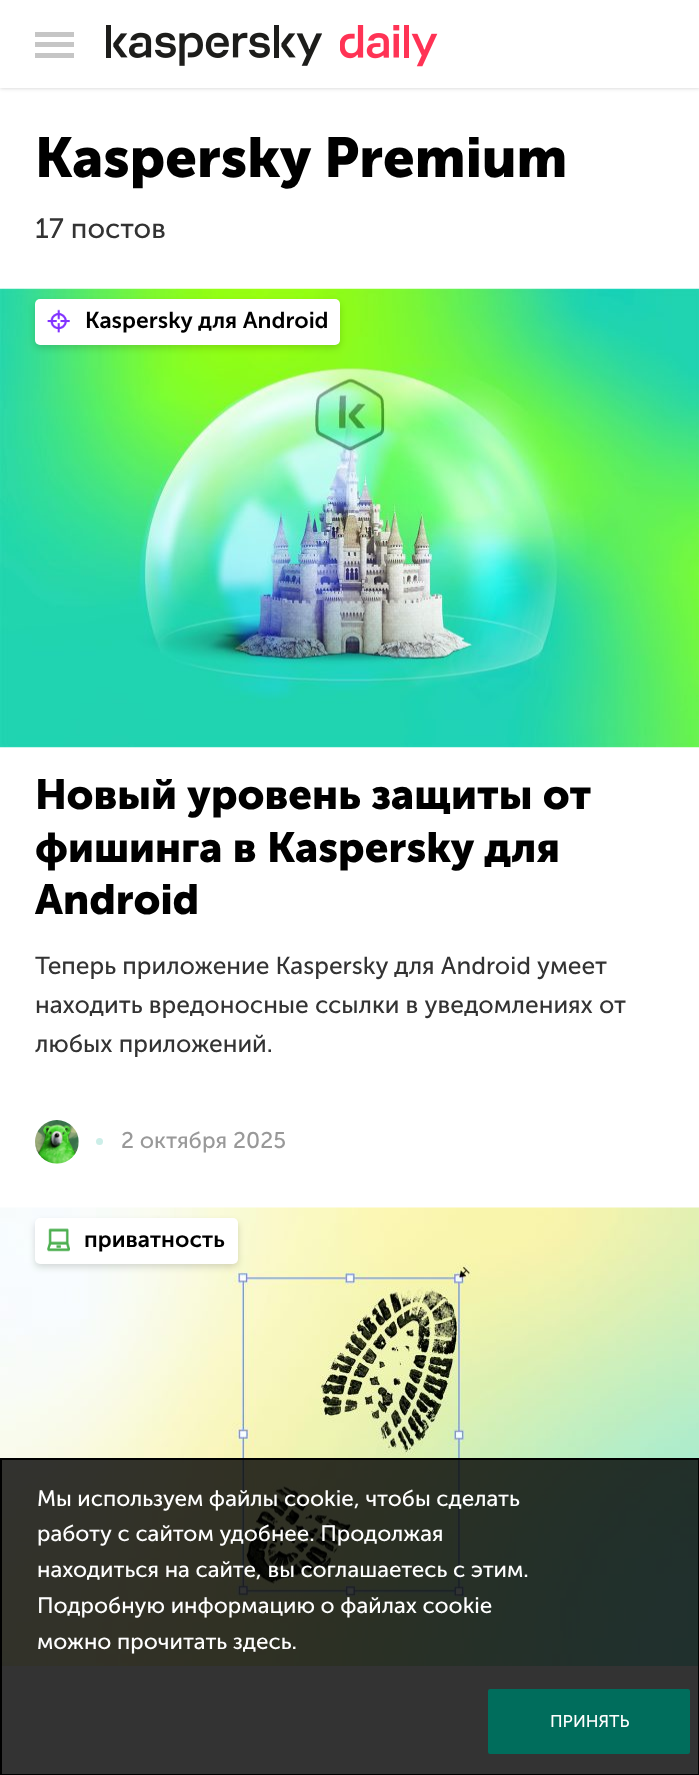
<svg xmlns="http://www.w3.org/2000/svg" width="699" height="1775">
<style>
.a{font:bold 56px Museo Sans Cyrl;fill:#000}
.b{font:28px Museo Sans Cyrl;fill:#333}
.c{font:600 22.75px Museo Sans Cyrl;fill:#000}
.d{font:bold 42px Museo Sans Cyrl;fill:#000}
.e{font:24.5px Museo Sans Cyrl;fill:#333}
.f{font:22.75px Museo Sans Cyrl;fill:#999}
.g{font:22.4px Museo Sans Cyrl;fill:#fff}
.h{font:17px Museo Sans Cyrl;fill:#fff}
</style>
<rect width="100%" height="100%" fill="#fff"/>
<path fill="#00000033" filter="blur(2px)" d="M0 0h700v88H0z"/>
<path fill="#fff" d="M0 0h699v88H0z"/>
<path fill="#c5c5c5" d="M35 32h39v5H35z"/>
<path fill="#c5c5c5" d="M35 42h39v5H35z"/>
<path fill="#c5c5c5" d="M35 53h39v5H35z"/>
<image href="1.png" x="106" y="25" width="216" height="41"/>
<image href="2.png" x="340" y="25" width="98" height="42"/>
<image href="3.png" x="0" y="288" width="699" height="460"/>
<rect fill="#00000026" filter="blur(3.5px)" x="35" y="303" width="305" height="45" rx="5"/>
<rect fill="#fff" x="35" y="299" width="305" height="46" rx="5"/>
<image href="4.png" x="47" y="309" width="23" height="24"/>
<image href="5.png" x="35" y="1120" width="44" height="44"/>
<circle fill="#cceee8" cx="99.5" cy="1141.5" r="3.5"/>
<image href="6.png" x="0" y="1207" width="699" height="459"/>
<rect fill="#00000026" filter="blur(3.5px)" x="35" y="1222" width="203" height="45" rx="5"/>
<rect fill="#fff" x="35" y="1218" width="203" height="46" rx="5"/>
<image href="7.png" x="47" y="1228" width="23" height="24"/>
<path fill="#000000cc" stroke="#000" stroke-width="2" d="M1 1459h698v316H1z"/>
<rect fill="#006d5c" x="488" y="1689" width="202" height="65" rx="2"/>
<text class="a" x="35" y="177">Kaspersky Premium</text>
<text class="b" x="35" y="238">17 постов</text>
<text class="c" x="85" y="328">Kaspersky для Android</text>
<text class="d" x="35" y="809">Новый уровень защиты от</text>
<text class="d" x="35" y="862">фишинга в Kaspersky для</text>
<text class="d" x="35" y="914">Android</text>
<text class="e" x="35" y="974">Теперь приложение Kaspersky для Android умеет</text>
<text class="e" x="35" y="1013">находить вредоносные ссылки в уведомлениях от</text>
<text class="e" x="35" y="1052">любых приложений.</text>
<text class="f" x="121" y="1148">2 октября 2025</text>
<text class="c" x="84" y="1247">приватность</text>
<text class="g" x="37" y="1506">Мы используем файлы cookie, чтобы сделать</text>
<text class="g" x="37" y="1541">работу с сайтом удобнее. Продолжая</text>
<text class="g" x="37" y="1577">находиться на сайте, вы соглашаетесь с этим.</text>
<text class="g" x="37" y="1613">Подробную информацию о файлах cookie</text>
<text class="g" x="37" y="1649">можно прочитать здесь.</text>
<text class="h" x="550" y="1727">ПРИНЯТЬ</text>
</svg>
